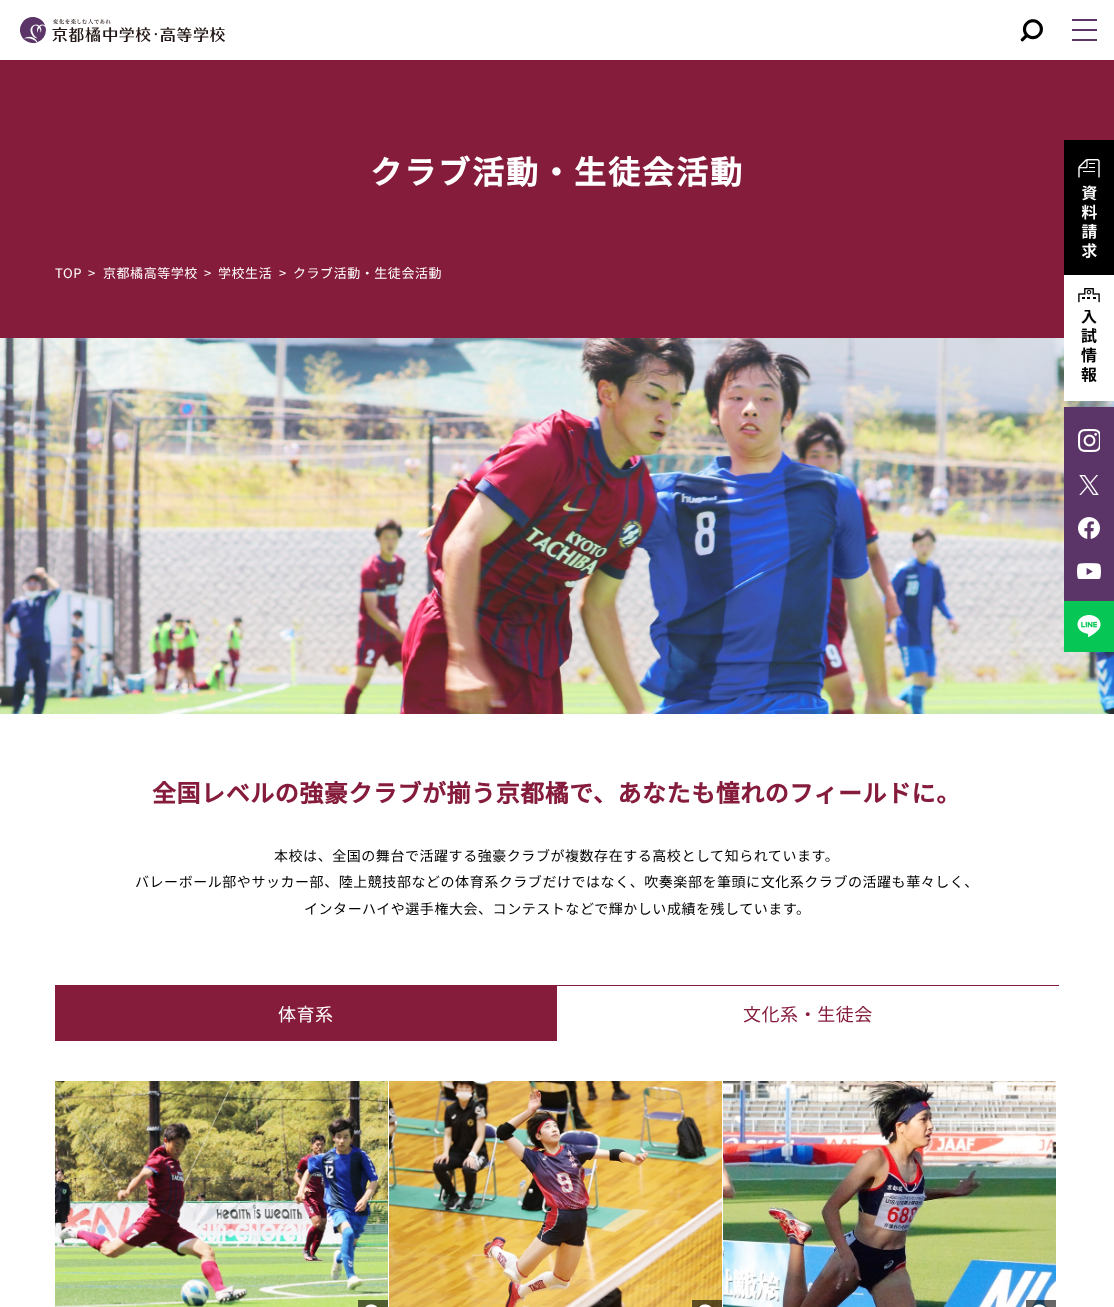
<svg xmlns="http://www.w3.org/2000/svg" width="1114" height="1307">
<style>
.a{font:bold 32px Noto Sans JP;letter-spacing:2px;fill:#fff}
.b{font:13px Noto Sans JP;letter-spacing:0.55px;fill:#fff}
.c{font:bold 24px Noto Sans JP;letter-spacing:0.55px;fill:#861c3c}
.d{font:14px Noto Sans JP;letter-spacing:0.55px;fill:#000}
.e{font:18px Noto Sans JP;letter-spacing:0.55px;fill:#fff}
.f{font:18px Noto Sans JP;letter-spacing:0.55px;fill:#861c3c}
</style>
<rect width="100%" height="100%" fill="#fff"/>
<image href="1.png" x="20" y="17" width="205" height="26"/>
<image href="2.png" x="1020" y="19" width="23" height="23"/>
<path fill="#5b3468" d="M1072 19h25v2H1072z"/>
<path fill="#5b3468" d="M1072 29h25v2H1072z"/>
<path fill="#5b3468" d="M1072 39h25v2H1072z"/>
<path fill="#861c3c" d="M0 60h1114v278H0z"/>
<image href="3.png" x="0" y="338" width="1114" height="376"/>
<path fill="#861c3c" d="M55 985h502v56H55z"/>
<path fill="#861c3c" d="M557 985h502v1H557z"/>
<image href="4.png" x="55" y="1081" width="333" height="226"/>
<image href="5.png" x="358" y="1300" width="30" height="7"/>
<image href="6.png" x="389" y="1081" width="333" height="226"/>
<image href="7.png" x="692" y="1300" width="30" height="7"/>
<image href="8.png" x="723" y="1081" width="333" height="226"/>
<image href="9.png" x="1026" y="1300" width="30" height="7"/>
<path fill="#000" d="M1064 140h50v135H1064z"/>
<image href="10.png" x="1078" y="159" width="22" height="100"/>
<path fill="#fff" d="M1064 275h50v126H1064z"/>
<image href="11.png" x="1078" y="288" width="22" height="94"/>
<path fill="#5b3468" d="M1064 407h50v194H1064z"/>
<image href="12.png" x="1078" y="429" width="22" height="23"/>
<image href="13.png" x="1079" y="475" width="20" height="20"/>
<image href="14.png" x="1078" y="517" width="22" height="22"/>
<image href="15.png" x="1077" y="563" width="24" height="16"/>
<path fill="#06c755" d="M1064 601h50v51H1064z"/>
<image href="16.png" x="1077" y="615" width="24" height="22"/>
<text class="a" x="370" y="184">クラブ活動・生徒会活動</text>
<text class="b" x="55" y="278">TOP</text>
<text class="b" x="88" y="278">&gt;</text>
<text class="b" x="103" y="278">京都橘高等学校</text>
<text class="b" x="204" y="278">&gt;</text>
<text class="b" x="218" y="278">学校生活</text>
<text class="b" x="279" y="278">&gt;</text>
<text class="b" x="293" y="278">クラブ活動・生徒会活動</text>
<text class="c" x="152" y="802">全国レベルの強豪クラブが揃う京都橘で、あなたも憧れのフィールドに。</text>
<text class="d" x="274" y="861">本校は、全国の舞台で活躍する強豪クラブが複数存在する高校として知られています。</text>
<text class="d" x="135" y="887">バレーボール部やサッカー部、陸上競技部などの体育系クラブだけではなく、吹奏楽部を筆頭に文化系クラブの活躍も華々しく、</text>
<text class="d" x="304" y="914">インターハイや選手権大会、コンテストなどで輝かしい成績を残しています。</text>
<text class="e" x="278" y="1021">体育系</text>
<text class="f" x="743" y="1021">文化系・生徒会</text>
</svg>
